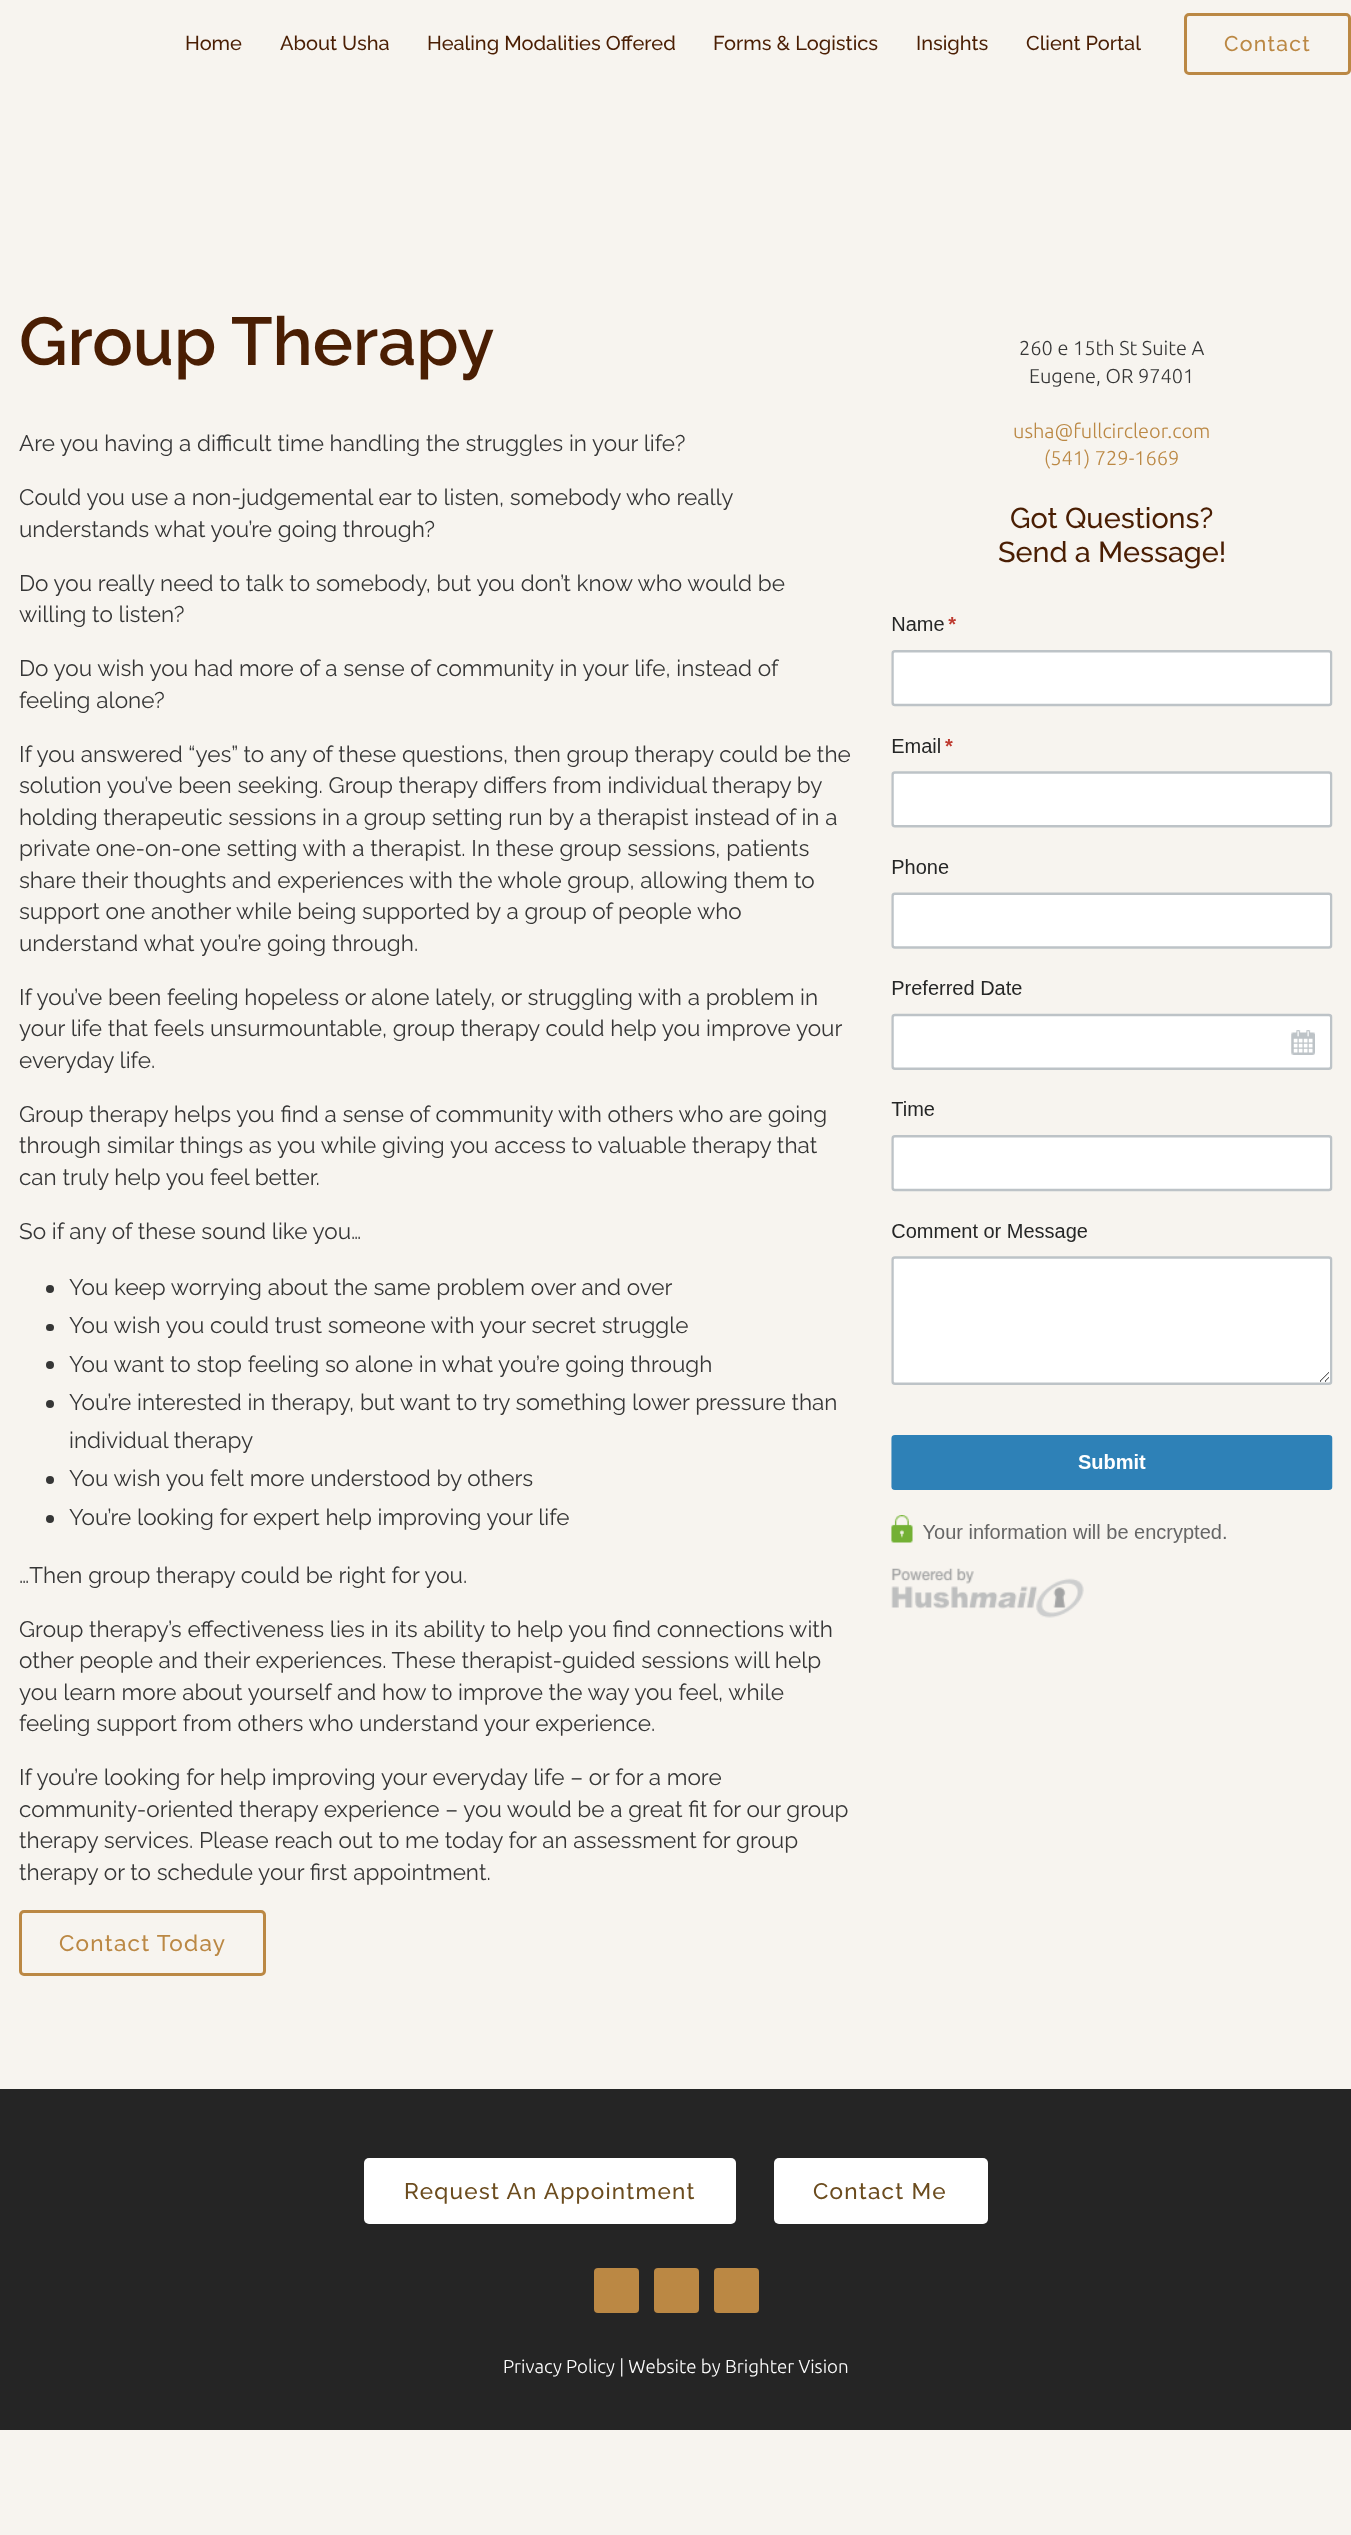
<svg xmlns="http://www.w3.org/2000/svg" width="1351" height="2535">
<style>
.a{font:500 20px Raleway;fill:#4a1e03}
.b{font:500 21.25px Raleway;letter-spacing:1.25px;fill:#b84}
.c{font:600 67.5px Raleway;fill:#4a1e03}
.d{font:22.5px Raleway;fill:#363636}
.e{font:500 22.5px Raleway;letter-spacing:1.25px;fill:#b84}
.f{font:300 20px Ubuntu;fill:#363636}
.g{font:300 20px Ubuntu;fill:#b84}
.h{font:500 28.75px Raleway;fill:#4a1e03}
.i{font:500 22.5px Raleway;letter-spacing:1.25px;fill:#6b4c1e}
.j{font:300 18.75px Ubuntu;fill:#fff}
</style>
<rect width="100%" height="100%" fill="#f7f4ef"/>
<rect fill="none" stroke="#b84" stroke-width="3" x="1185.5" y="14.5" width="164" height="59" rx="3.5"/>
<circle fill="#363636" cx="50" cy="1289" r="4"/>
<rect fill="#363636" x="46" y="1324" width="8" height="7" rx="3.5"/>
<circle fill="#363636" cx="50" cy="1365" r="4"/>
<circle fill="#363636" cx="50" cy="1404" r="4"/>
<circle fill="#363636" cx="50" cy="1480" r="4"/>
<circle fill="#363636" cx="50" cy="1519" r="4"/>
<rect fill="none" stroke="#b84" stroke-width="3" x="20.5" y="1911.5" width="244" height="63" rx="3.5"/>
<image href="1.png" x="891" y="617" width="442" height="1001"/>
<path fill="#252525" d="M0 2089h1351v341H0z"/>
<rect fill="#fff" x="364" y="2158" width="372" height="66" rx="5"/>
<rect fill="#fff" x="774" y="2158" width="214" height="66" rx="5"/>
<rect fill="#b84" x="594" y="2268" width="45" height="45" rx="4"/>
<rect fill="#b84" x="654" y="2268" width="45" height="45" rx="4"/>
<rect fill="#b84" x="714" y="2268" width="45" height="45" rx="4"/>
<text class="a" x="185" y="50">Home</text>
<text class="a" x="280" y="50">About Usha</text>
<text class="a" x="427" y="50">Healing Modalities Offered</text>
<text class="a" x="713" y="50">Forms &amp; Logistics</text>
<text class="a" x="916" y="50">Insights</text>
<text class="a" x="1026" y="50">Client Portal</text>
<text class="b" x="1224" y="51">Contact</text>
<text class="c" x="19" y="365">Group Therapy</text>
<text class="d" x="19" y="451">Are you having a difficult time handling the struggles in your life?</text>
<text class="d" x="19" y="505">Could you use a non-judgemental ear to listen, somebody who really</text>
<text class="d" x="19" y="537">understands what you’re going through?</text>
<text class="d" x="19" y="591">Do you really need to talk to somebody, but you don’t know who would be</text>
<text class="d" x="19" y="622">willing to listen?</text>
<text class="d" x="19" y="676">Do you wish you had more of a sense of community in your life, instead of</text>
<text class="d" x="19" y="708">feeling alone?</text>
<text class="d" x="19" y="762">If you answered “yes” to any of these questions, then group therapy could be the</text>
<text class="d" x="19" y="793">solution you’ve been seeking. Group therapy differs from individual therapy by</text>
<text class="d" x="19" y="825">holding therapeutic sessions in a group setting run by a therapist instead of in a</text>
<text class="d" x="19" y="856">private one-on-one setting with a therapist. In these group sessions, patients</text>
<text class="d" x="19" y="888">share their thoughts and experiences with the whole group, allowing them to</text>
<text class="d" x="19" y="919">support one another while being supported by a group of people who</text>
<text class="d" x="19" y="951">understand what you’re going through.</text>
<text class="d" x="19" y="1005">If you’ve been feeling hopeless or alone lately, or struggling with a problem in</text>
<text class="d" x="19" y="1036">your life that feels unsurmountable, group therapy could help you improve your</text>
<text class="d" x="19" y="1068">everyday life.</text>
<text class="d" x="19" y="1122">Group therapy helps you find a sense of community with others who are going</text>
<text class="d" x="19" y="1153">through similar things as you while giving you access to valuable therapy that</text>
<text class="d" x="19" y="1185">can truly help you feel better.</text>
<text class="d" x="19" y="1239">So if any of these sound like you…</text>
<text class="d" x="69" y="1295">You keep worrying about the same problem over and over</text>
<text class="d" x="69" y="1333">You wish you could trust someone with your secret struggle</text>
<text class="d" x="69" y="1372">You want to stop feeling so alone in what you’re going through</text>
<text class="d" x="69" y="1410">You’re interested in therapy, but want to try something lower pressure than</text>
<text class="d" x="69" y="1448">individual therapy</text>
<text class="d" x="69" y="1486">You wish you felt more understood by others</text>
<text class="d" x="69" y="1525">You’re looking for expert help improving your life</text>
<text class="d" x="19" y="1583">…Then group therapy could be right for you.</text>
<text class="d" x="19" y="1637">Group therapy’s effectiveness lies in its ability to help you find connections with</text>
<text class="d" x="19" y="1668">other people and their experiences. These therapist-guided sessions will help</text>
<text class="d" x="19" y="1700">you learn more about yourself and how to improve the way you feel, while</text>
<text class="d" x="19" y="1731">feeling support from others who understand your experience.</text>
<text class="d" x="19" y="1785">If you’re looking for help improving your everyday life – or for a more</text>
<text class="d" x="19" y="1817">community-oriented therapy experience – you would be a great fit for our group</text>
<text class="d" x="19" y="1848">therapy services. Please reach out to me today for an assessment for group</text>
<text class="d" x="19" y="1880">therapy or to schedule your first appointment.</text>
<text class="e" x="59" y="1951">Contact Today</text>
<text class="f" x="1019" y="355">260 e 15th St Suite A</text>
<text class="f" x="1029" y="383">Eugene, OR 97401</text>
<text class="g" x="1013" y="438">usha@fullcircleor.com</text>
<text class="g" x="1044" y="465">(541) 729-1669</text>
<text class="h" x="1010" y="528">Got Questions?</text>
<text class="h" x="998" y="562">Send a Message!</text>
<text class="i" x="404" y="2199">Request An Appointment</text>
<text class="i" x="813" y="2199">Contact Me</text>
<text class="j" x="503" y="2373">Privacy Policy | Website by Brighter Vision</text>
</svg>
